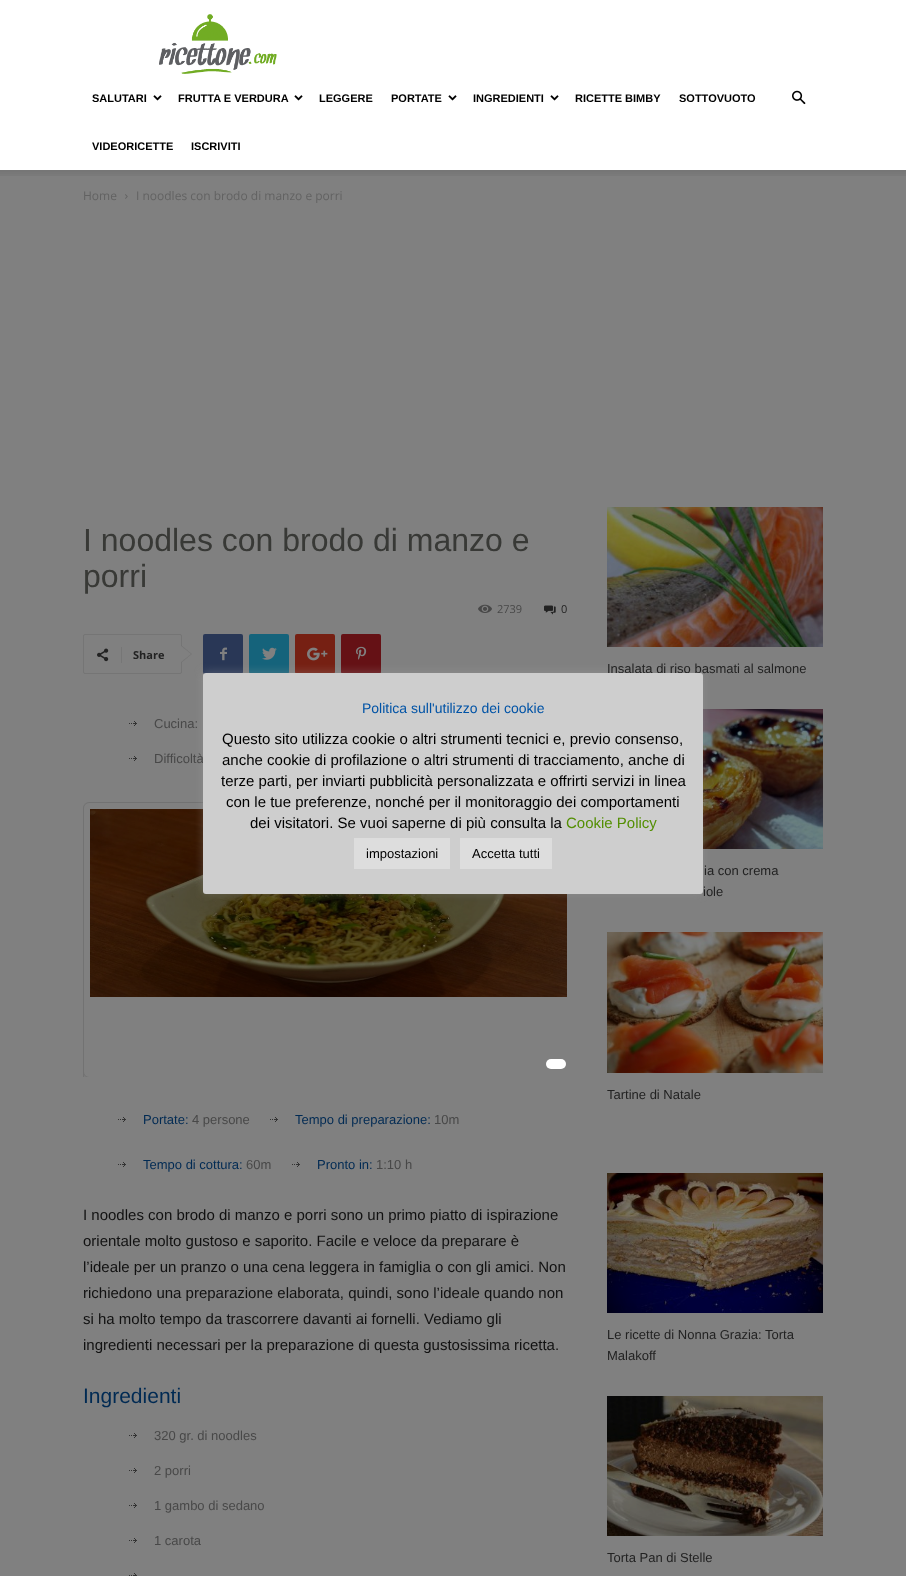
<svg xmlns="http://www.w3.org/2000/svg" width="906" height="1576">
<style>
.a{font:bold 11px Liberation Sans;fill:#000}
.b{font:12px Open Sans;fill:#626262}
.c{font:32px Liberation Sans;fill:#383936}
.d{font:11px Open Sans;fill:#484848}
.e{font:11px Open Sans;fill:#222}
.f{font:bold 11px Open Sans;fill:#222}
.g{font:13px Liberation Sans;fill:#484848}
.h{font:13px Liberation Sans;fill:#002a53}
.i{font:15px Liberation Sans;fill:#111}
.j{font:21px Liberation Sans;fill:#002a53}
.k{font:13px Liberation Sans;fill:#222}
.l{font:14px Liberation Sans;fill:#0053a6}
.m{font:15px Liberation Sans;fill:#000}
.n{font:15px Liberation Sans;fill:#548f04}
.o{font:13px Liberation Sans;fill:#000}
</style>
<rect width="100%" height="100%" fill="#808080"/>
<path fill="#fff" d="M0 0h906v170H0z"/>
<image href="1.png" x="159" y="14" width="118" height="60"/>
<image href="2.png" x="153" y="95" width="9" height="6"/>
<image href="2.png" x="294" y="95" width="9" height="6"/>
<image href="2.png" x="448" y="95" width="9" height="6"/>
<image href="2.png" x="550" y="95" width="9" height="6"/>
<image href="3.png" x="792" y="90" width="14" height="15"/>
<image href="4.png" x="0" y="170" width="906" height="6"/>
<image href="5.png" x="125" y="194" width="3" height="5"/>
<image href="6.png" x="478" y="604" width="14" height="9"/>
<image href="7.png" x="544" y="605" width="12" height="10"/>
<rect fill="none" stroke="#757575" x="83.5" y="634.5" width="98" height="39" rx="1.5"/>
<path fill="#757575" d="M181 663v-18l11 9z"/>
<image href="8.png" x="97" y="648" width="12" height="14"/>
<path fill="#767676" d="M121 647h1v16H121z"/>
<path fill="#808080" d="M181 662v-16l10 8z"/>
<rect fill="#293756" x="203" y="634" width="40" height="40" rx="2"/>
<image href="9.png" x="220" y="647" width="7" height="14"/>
<rect fill="#15637b" x="249" y="634" width="40" height="40" rx="2"/>
<image href="10.png" x="262" y="647" width="15" height="13"/>
<rect fill="#762013" x="295" y="634" width="40" height="40" rx="2"/>
<image href="11.png" x="307" y="647" width="21" height="14"/>
<rect fill="#651115" x="341" y="634" width="40" height="40" rx="2"/>
<image href="12.png" x="356" y="646" width="11" height="14"/>
<image href="13.png" x="129" y="721" width="8" height="5"/>
<image href="13.png" x="129" y="756" width="8" height="5"/>
<image href="14.png" x="83" y="802" width="484" height="275"/>
<image href="15.png" x="90" y="809" width="477" height="188"/>
<rect fill="#fff" x="546" y="1059" width="20" height="10" rx="5"/>
<image href="13.png" x="118" y="1117" width="8" height="5"/>
<image href="13.png" x="270" y="1117" width="8" height="5"/>
<image href="13.png" x="118" y="1162" width="8" height="5"/>
<image href="13.png" x="292" y="1162" width="8" height="5"/>
<image href="13.png" x="129" y="1433" width="8" height="5"/>
<image href="13.png" x="129" y="1468" width="8" height="5"/>
<image href="13.png" x="129" y="1503" width="8" height="5"/>
<image href="13.png" x="129" y="1538" width="8" height="5"/>
<image href="16.png" x="129" y="1573" width="8" height="3"/>
<image href="17.png" x="607" y="507" width="216" height="140"/>
<image href="18.png" x="703" y="709" width="120" height="140"/>
<image href="19.png" x="607" y="932" width="216" height="141"/>
<image href="20.png" x="607" y="1173" width="216" height="140"/>
<image href="21.png" x="607" y="1396" width="216" height="140"/>
<rect fill="#acabab4d" filter="blur(5px)" x="203" y="672" width="500" height="221" rx="3"/>
<text class="a" x="92" y="102">SALUTARI</text>
<text class="a" x="178" y="102">FRUTTA E VERDURA</text>
<text class="a" x="319" y="102">LEGGERE</text>
<text class="a" x="391" y="102">PORTATE</text>
<text class="a" x="473" y="102">INGREDIENTI</text>
<text class="a" x="575" y="102">RICETTE BIMBY</text>
<text class="a" x="679" y="102">SOTTOVUOTO</text>
<text class="a" x="92" y="150">VIDEORICETTE</text>
<text class="a" x="191" y="150">ISCRIVITI</text>
<text class="b" x="83" y="200">Home</text>
<text class="b" x="136" y="200">I noodles con brodo di manzo e porri</text>
<text class="c" x="83" y="551">I noodles con brodo di manzo e</text>
<text class="c" x="83" y="587">porri</text>
<text class="d" x="497" y="613">2739</text>
<text class="e" x="561" y="613">0</text>
<text class="f" x="133" y="659">Share</text>
<text class="g" x="154" y="728">Cucina:</text>
<text class="g" x="154" y="763">Difficoltà</text>
<text class="h" x="143" y="1124">Portate:</text>
<text class="g" x="192" y="1124">4 persone</text>
<text class="h" x="295" y="1124">Tempo di preparazione:</text>
<text class="g" x="434" y="1124">10m</text>
<text class="h" x="143" y="1169">Tempo di cottura:</text>
<text class="g" x="246" y="1169">60m</text>
<text class="h" x="317" y="1169">Pronto in:</text>
<text class="g" x="376" y="1169">1:10 h</text>
<text class="i" x="83" y="1220">I noodles con brodo di manzo e porri sono un primo piatto di ispirazione</text>
<text class="i" x="83" y="1246">orientale molto gustoso e saporito. Facile e veloce da preparare è</text>
<text class="i" x="83" y="1272">l’ideale per un pranzo o una cena leggera in famiglia o con gli amici. Non</text>
<text class="i" x="83" y="1298">richiedono una preparazione elaborata, quindi, sono l’ideale quando non</text>
<text class="i" x="83" y="1324">si ha molto tempo da trascorrere davanti ai fornelli. Vediamo gli</text>
<text class="i" x="83" y="1350">ingredienti necessari per la preparazione di questa gustosissima ricetta.</text>
<text class="j" x="83" y="1403">Ingredienti</text>
<text class="g" x="154" y="1440">320 gr. di noodles</text>
<text class="g" x="154" y="1475">2 porri</text>
<text class="g" x="154" y="1510">1 gambo di sedano</text>
<text class="g" x="154" y="1545">1 carota</text>
<text class="k" x="607" y="673">Insalata di riso basmati al salmone</text>
<text class="k" x="704" y="875">ia con crema</text>
<text class="k" x="703" y="896">iole</text>
<text class="k" x="607" y="1099">Tartine di Natale</text>
<text class="k" x="607" y="1339">Le ricette di Nonna Grazia: Torta</text>
<text class="k" x="607" y="1360">Malakoff</text>
<text class="k" x="607" y="1562">Torta Pan di Stelle</text>
<rect fill="#cecece" x="203" y="673" width="500" height="221" rx="3"/>
<text class="l" x="362" y="713">Politica sull'utilizzo dei cookie</text>
<text class="m" x="222" y="744">Questo sito utilizza cookie o altri strumenti tecnici e, previo consenso,</text>
<text class="m" x="222" y="765">anche cookie di profilazione o altri strumenti di tracciamento, anche di</text>
<text class="m" x="221" y="786">terze parti, per inviarti pubblicità personalizzata e offrirti servizi in linea</text>
<text class="m" x="226" y="807">con le tue preferenze, nonché per il monitoraggio dei comportamenti</text>
<text class="m" x="250" y="828">dei visitatori. Se vuoi saperne di più consulta la</text>
<text class="n" x="566" y="828">Cookie Policy</text>
<path fill="#ddd" d="M354 838h96v31H354z"/>
<text class="o" x="366" y="858">impostazioni</text>
<path fill="#ddd" d="M460 838h92v31H460z"/>
<text class="o" x="472" y="858">Accetta tutti</text>
</svg>
